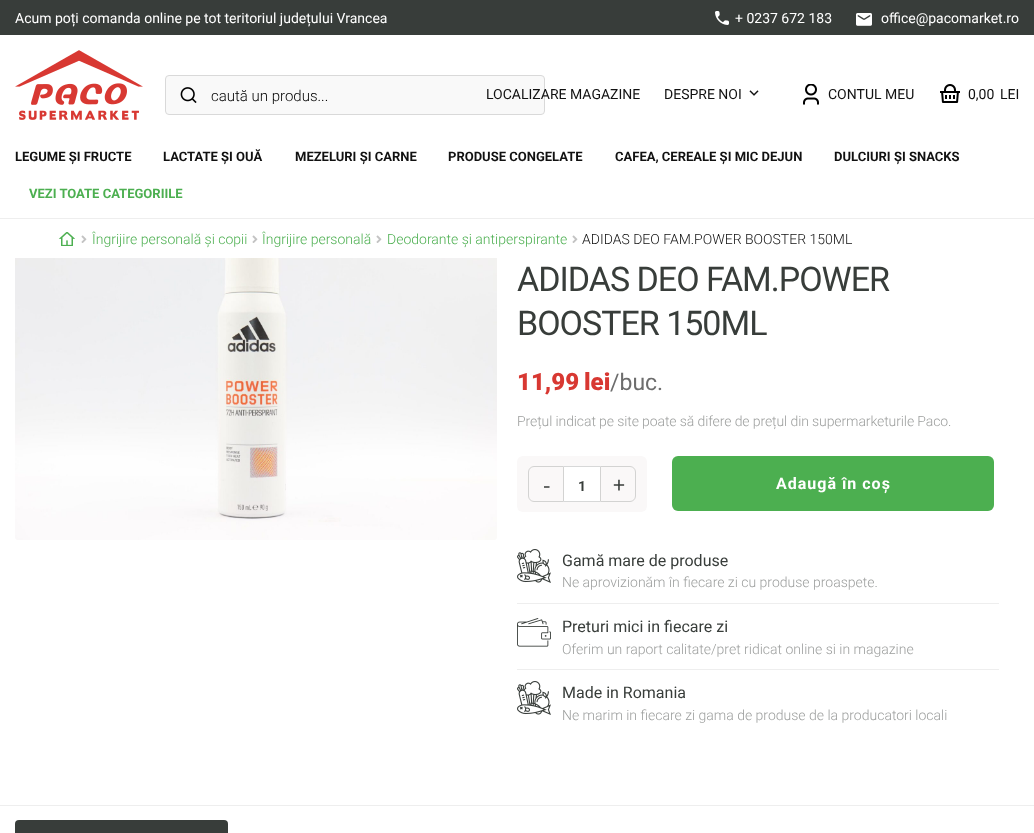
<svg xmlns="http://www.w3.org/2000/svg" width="1034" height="833">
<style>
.a{font:14px Roboto;fill:#fff}
.b{font:300 15px Roboto;fill:#000}
.c{font:14px Roboto;fill:#111}
.d{font:bold 13px Roboto;fill:#111}
.e{font:bold 13px Roboto;fill:#4caf50}
.f{font:300 14px Roboto;fill:#4caf50}
.g{font:300 14px Roboto;fill:#111}
.h{font:34px Roboto;letter-spacing:-1px;fill:#383d3a}
.i{font:900 24px Roboto;fill:#d83832}
.j{font:23px Roboto;fill:#6d6d6d}
.k{font:300 14px Roboto;letter-spacing:-0.1px;fill:#9c9e9d}
.l{font:24px Source Sans Pro;fill:#383d3a}
.m{font:bold 14px Roboto;fill:#383d3a}
.n{font:bold 16px Roboto;letter-spacing:1px;fill:#fff}
.o{font:16px Roboto;fill:#383d3a}
.p{font:300 14px Roboto;fill:#9c9e9d}
</style>
<rect width="100%" height="100%" fill="#fff"/>
<path fill="#383d3a" d="M0 0h1034v35H0z"/>
<image href="1.png" x="715" y="11" width="14" height="14"/>
<image href="2.png" x="856" y="13" width="16" height="13"/>
<image href="3.png" x="15" y="50" width="128" height="70"/>
<rect fill="#f9f9f9" stroke="#d9d9d9" x="165.5" y="75.5" width="379" height="39" rx="3.5"/>
<image href="4.png" x="180" y="87" width="17" height="16"/>
<image href="5.png" x="749" y="90" width="10" height="6"/>
<image href="6.png" x="803" y="84" width="16" height="21"/>
<image href="7.png" x="940" y="84" width="20" height="19"/>
<path fill="#eee" d="M0 218h1034v1H0z"/>
<image href="8.png" x="58" y="232" width="17" height="14"/>
<image href="9.png" x="81" y="235" width="6" height="8"/>
<image href="9.png" x="252" y="235" width="6" height="8"/>
<image href="9.png" x="376" y="235" width="6" height="8"/>
<image href="9.png" x="572" y="235" width="6" height="8"/>
<image href="10.png" x="15" y="258" width="482" height="282"/>
<rect fill="#faf8f8" x="517" y="456" width="130" height="56" rx="6"/>
<path fill="none" stroke="#d3d3d2" d="M534 466.5h29.5v35h-29.5c-3 0-5.5-2.5-5.5-5.5v-24c0-3 2.5-5.5 5.5-5.5z"/>
<path fill="#fff" d="M564 467h36v34H564z"/>
<path fill="#d7d8d8" d="M564 466h36v1H564z"/>
<path fill="#d7d8d8" d="M564 501h36v1H564z"/>
<path fill="none" stroke="#d3d3d2" d="M600.5 466.5h29.5c3 0 5.5 2.5 5.5 5.5v24c0 3-2.5 5.5-5.5 5.5h-29.5z"/>
<rect fill="#4caf50" x="672" y="456" width="322" height="55" rx="6"/>
<path fill="#eee" d="M517 603h482v1H517z"/>
<image href="11.png" x="517" y="549" width="34" height="34"/>
<path fill="#eee" d="M517 669h482v1H517z"/>
<image href="12.png" x="517" y="618" width="34" height="29"/>
<image href="11.png" x="517" y="681" width="34" height="34"/>
<path fill="#eee" d="M0 805h1034v1H0z"/>
<rect fill="#383d3a" x="15" y="820" width="213" height="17" rx="4"/>
<text class="a" x="15" y="23">Acum poți comanda online pe tot teritoriul județului Vrancea</text>
<text class="a" x="735" y="23">+ 0237 672 183</text>
<text class="a" x="881" y="23">office@pacomarket.ro</text>
<text class="b" x="211" y="101">caută un produs...</text>
<text class="c" x="486" y="99">LOCALIZARE MAGAZINE</text>
<text class="c" x="664" y="99">DESPRE NOI</text>
<text class="c" x="828" y="99">CONTUL MEU</text>
<text class="c" x="968" y="99">0,00</text>
<text class="c" x="1000" y="99">LEI</text>
<text class="d" x="15" y="161">LEGUME ȘI FRUCTE</text>
<text class="d" x="163" y="161">LACTATE ȘI OUĂ</text>
<text class="d" x="295" y="161">MEZELURI ȘI CARNE</text>
<text class="d" x="448" y="161">PRODUSE CONGELATE</text>
<text class="d" x="615" y="161">CAFEA, CEREALE ȘI MIC DEJUN</text>
<text class="d" x="834" y="161">DULCIURI ȘI SNACKS</text>
<text class="e" x="29" y="198">VEZI TOATE CATEGORIILE</text>
<text class="f" x="92" y="244">Îngrijire personală și copii</text>
<text class="f" x="262" y="244">Îngrijire personală</text>
<text class="f" x="387" y="244">Deodorante și antiperspirante</text>
<text class="g" x="582" y="244">ADIDAS DEO FAM.POWER BOOSTER 150ML</text>
<text class="h" x="517" y="291">ADIDAS DEO FAM.POWER</text>
<text class="h" x="517" y="335">BOOSTER 150ML</text>
<text class="i" x="517" y="390">11,99</text>
<text class="i" x="584" y="390">lei</text>
<text class="j" x="610" y="390">/buc.</text>
<text class="k" x="517" y="426">Prețul indicat pe site poate să difere de prețul din supermarketurile Paco.</text>
<text class="l" x="543" y="493">-</text>
<text class="m" x="578" y="491">1</text>
<text class="l" x="613" y="493">+</text>
<text class="n" x="776" y="489">Adaugă în coș</text>
<text class="o" x="562" y="566">Gamă mare de produse</text>
<text class="p" x="562" y="587">Ne aprovizionăm în fiecare zi cu produse proaspete.</text>
<text class="o" x="562" y="632">Preturi mici in fiecare zi</text>
<text class="p" x="562" y="654">Oferim un raport calitate/pret ridicat online si in magazine</text>
<text class="o" x="562" y="698">Made in Romania</text>
<text class="p" x="562" y="720">Ne marim in fiecare zi gama de produse de la producatori locali</text>
</svg>
